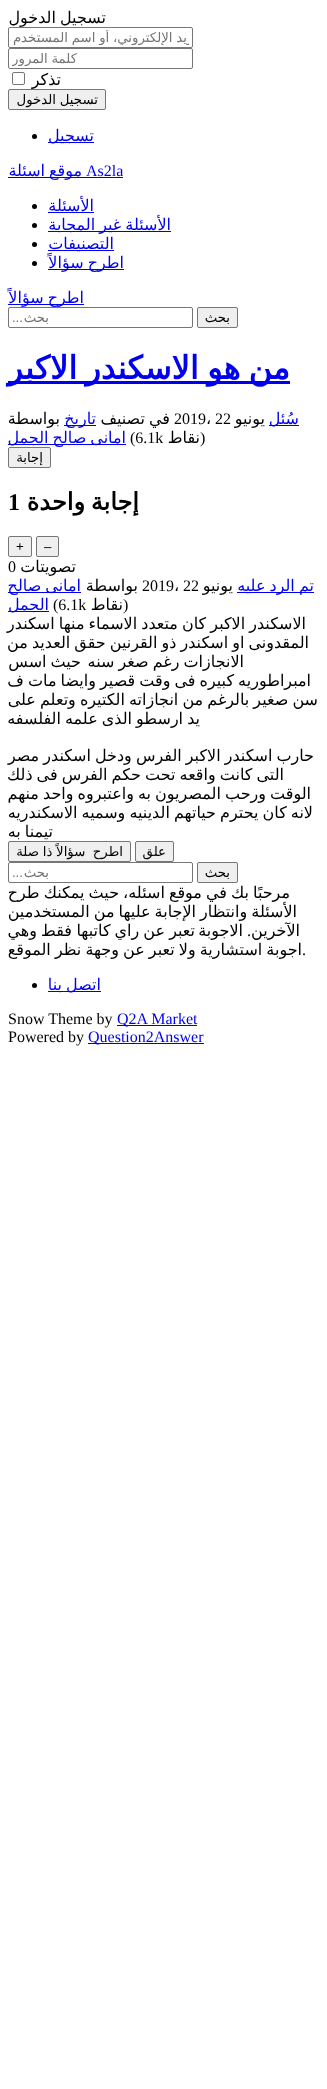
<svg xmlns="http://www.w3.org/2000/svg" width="327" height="2089">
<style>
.a{font:16px DejaVu Sans;direction:rtl;fill:#000}
.b{font:13.3px DejaVu Sans;direction:rtl;fill:#757575}
.c{font:13.3px DejaVu Sans;direction:rtl;fill:#000}
.d{font:16px DejaVu Sans;direction:rtl;fill:#00e}
.e{font:16px Liberation Serif;fill:#00e}
.f{font:13.3px Liberation Sans;direction:rtl;fill:#757575}
.g{font:bold 32px DejaVu Sans;direction:rtl;fill:#00e}
.h{font:16px Liberation Serif;fill:#000}
.i{font:16px DejaVu Sans;fill:#000}
.j{font:bold 24px DejaVu Sans;direction:rtl;fill:#000}
.k{font:bold 24px Liberation Serif;fill:#000}
.l{font:13.3px Liberation Sans;fill:#000}
.m{font:16px Liberation Serif;direction:rtl;fill:#000}
</style>
<defs>
<clipPath id="clip1"><path d="M12 30h177v15H12z"/></clipPath>
<clipPath id="clip2"><path d="M12 51h177v15H12z"/></clipPath>
</defs>
<rect width="100%" height="100%" fill="#fff"/>
<rect fill="none" stroke="#767676" x="8.5" y="27.5" width="184" height="20" rx="1.5"/>
<rect fill="none" stroke="#767676" x="8.5" y="48.5" width="184" height="20" rx="1.5"/>
<rect fill="none" stroke="#767676" x="12.5" y="72.5" width="12" height="12" rx="1.5"/>
<rect fill="#efefef" stroke="#767676" x="8.5" y="89.5" width="97" height="20" rx="1.5"/>
<path fill="#00e" d="M48 142h46v1H48z"/>
<circle fill="#000" cx="34.5" cy="136.5" r="2.5"/>
<path fill="#00e" d="M8 177h115v1H8z"/>
<path fill="#00e" d="M48 212h46v1H48z"/>
<circle fill="#000" cx="34.5" cy="206.5" r="2.5"/>
<path fill="#00e" d="M48 231h123v1H48z"/>
<circle fill="#000" cx="34.5" cy="225.5" r="2.5"/>
<path fill="#00e" d="M48 250h66v1H48z"/>
<circle fill="#000" cx="34.5" cy="244.5" r="2.5"/>
<path fill="#00e" d="M48 269h76v1H48z"/>
<circle fill="#000" cx="34.5" cy="263.5" r="2.5"/>
<path fill="#00e" d="M8 304h76v1H8z"/>
<rect fill="#efefef" stroke="#767676" x="197.5" y="307.5" width="40" height="20" rx="1.5"/>
<rect fill="none" stroke="#767676" x="8.5" y="307.5" width="184" height="20" rx="1.5"/>
<path fill="#00e" d="M8 381h282v3H8z"/>
<path fill="#00e" d="M269 425h30v1H269z"/>
<path fill="#00e" d="M64 425h32v1H64z"/>
<path fill="#00e" d="M8 444h118v1H8z"/>
<rect fill="#efefef" stroke="#767676" x="8.5" y="447.5" width="42" height="20" rx="1.5"/>
<rect fill="#efefef" stroke="#767676" x="36.5" y="536.5" width="22" height="20" rx="1.5"/>
<rect fill="#efefef" stroke="#767676" x="8.5" y="536.5" width="23" height="20" rx="1.5"/>
<path fill="#00e" d="M237 592h77v1H237z"/>
<path fill="#00e" d="M8 592h73v1H8z"/>
<path fill="#00e" d="M8 611h41v1H8z"/>
<rect fill="#efefef" stroke="#767676" x="135.5" y="841.5" width="38" height="20" rx="1.5"/>
<rect fill="#efefef" stroke="#767676" x="8.5" y="841.5" width="122" height="20" rx="1.5"/>
<rect fill="#efefef" stroke="#767676" x="197.5" y="862.5" width="40" height="20" rx="1.5"/>
<rect fill="none" stroke="#767676" x="8.5" y="862.5" width="184" height="20" rx="1.5"/>
<path fill="#00e" d="M48 991h53v1H48z"/>
<circle fill="#000" cx="34.5" cy="985.5" r="2.5"/>
<path fill="#00e" d="M117 1025h80v1H117z"/>
<path fill="#00e" d="M88 1043h116v1H88z"/>
<text class="a" x="106" y="23" word-spacing="-1">تسجيل الدخول</text>
<g clip-path="url(#clip1)">
<text class="b" x="206" y="42" word-spacing="-0.5">البريد الإلكتروني، أو اسم المستخدم</text>
</g>
<g clip-path="url(#clip2)">
<text class="b" x="77" y="63" word-spacing="-0.5">كلمة المرور</text>
</g>
<text class="a" x="61" y="85">تذكر</text>
<text class="c" x="98" y="104" word-spacing="-0.5">تسجيل الدخول</text>
<text class="d" x="94" y="141">تسجيل</text>
<text class="e" x="86" y="176">As2la</text>
<text class="d" x="82" y="176">موقع</text>
<text class="d" x="45" y="176">اسئلة</text>
<text class="d" x="94" y="211">الأسئلة</text>
<text class="d" x="171" y="230" word-spacing="-1">الأسئلة غير المجابة</text>
<text class="d" x="114" y="249">التصنيفات</text>
<text class="d" x="124" y="268" word-spacing="-1">اطرح سؤالاً</text>
<text class="d" x="84" y="303" word-spacing="-1">اطرح سؤالاً</text>
<text class="c" x="230" y="322">بحث</text>
<text class="b" x="49" y="322">بحث</text>
<text class="f" x="23" y="322">...</text>
<text class="g" x="290" y="379" word-spacing="-2">من هو الاسكندر الاكبر</text>
<text class="d" x="299" y="424">سُئل</text>
<text class="a" x="265" y="424">يونيو</text>
<text class="h" x="215" y="424">22</text>
<text class="i" x="206" y="424">،</text>
<text class="h" x="174" y="424">2019</text>
<text class="a" x="170" y="424" word-spacing="-1">في تصنيف</text>
<text class="d" x="96" y="424">تاريخ</text>
<text class="a" x="60" y="424">بواسطة</text>
<text class="h" x="200" y="443">)</text>
<text class="a" x="200" y="443">نقاط</text>
<text class="h" x="130" y="443">(6.1k</text>
<text class="d" x="126" y="443" word-spacing="-1">امانى صالح الجمل</text>
<text class="c" x="43" y="462">إجابة</text>
<text class="j" x="139" y="510" word-spacing="-2">إجابة واحدة</text>
<text class="k" x="8" y="510">1</text>
<text class="l" x="44" y="551">–</text>
<text class="l" x="16" y="551">+</text>
<text class="a" x="76" y="572">تصويتات</text>
<text class="h" x="8" y="572">0</text>
<text class="d" x="314" y="591" word-spacing="-1">تم الرد عليه</text>
<text class="a" x="233" y="591">يونيو</text>
<text class="h" x="183" y="591">22</text>
<text class="i" x="174" y="591">،</text>
<text class="h" x="142" y="591">2019</text>
<text class="a" x="138" y="591">بواسطة</text>
<text class="d" x="81" y="591" word-spacing="-1">امانى صالح</text>
<text class="h" x="123" y="610">)</text>
<text class="a" x="123" y="610">نقاط</text>
<text class="h" x="53" y="610">(6.1k</text>
<text class="d" x="49" y="610">الجمل</text>
<text class="a" x="306" y="629" word-spacing="-1">الاسكندر الاكبر كان متعدد الاسماء منها اسكندر</text>
<text class="a" x="309" y="648" word-spacing="-1">المقدونى او اسكندر ذو القرنين حقق العديد من</text>
<text class="a" x="244" y="667" word-spacing="-1">الانجازات رغم صغر سنه</text>
<text class="a" x="81" y="667" word-spacing="-1">حيث اسس</text>
<text class="a" x="311" y="686" word-spacing="-1">امبراطوريه كبيره فى وقت قصير وايضا مات ف</text>
<text class="a" x="318" y="705" word-spacing="-1">سن صغير بالرغم من انجازاته الكتيره وتعلم على</text>
<text class="a" x="200" y="724" word-spacing="-1">يد ارسطو الذى علمه الفلسفه</text>
<text class="a" x="314" y="761" word-spacing="-1">حارب اسكندر الاكبر الفرس ودخل اسكندر مصر</text>
<text class="a" x="284" y="780" word-spacing="-1">التى كانت واقعه تحت حكم الفرس فى ذلك</text>
<text class="a" x="311" y="799" word-spacing="-1">الوقت ورحب المصريون به واعتبروه واحد منهم</text>
<text class="a" x="313" y="818" word-spacing="-1">لانه كان يحترم حياتهم الدينيه وسميه الاسكندريه</text>
<text class="a" x="53" y="837" word-spacing="-1">تيمنا به</text>
<text class="c" x="166" y="856">علق</text>
<text class="c" xml:space="preserve" x="123" y="856" word-spacing="-0.5">اطرح  سؤالاً ذا صلة</text>
<text class="c" x="230" y="877">بحث</text>
<text class="b" x="49" y="877">بحث</text>
<text class="f" x="23" y="877">...</text>
<text class="a" x="290" y="898" word-spacing="-1">مرحبًا بك</text>
<text class="a" x="227" y="898" word-spacing="-1">في موقع اسئله، حيث يمكنك طرح</text>
<text class="a" x="297" y="917" word-spacing="-1">الأسئلة وانتظار الإجابة عليها من المستخدمين</text>
<text class="a" x="300" y="936">الآخرين</text>
<text class="m" x="251" y="936">.</text>
<text class="a" x="243" y="936">الاجوبة</text>
<text class="a" x="195" y="936" word-spacing="-1">تعبر عن راي كاتبها</text>
<text class="a" x="72" y="936" word-spacing="-1">فقط وهي</text>
<text class="a" x="302" y="955" word-spacing="-1">اجوبة استشارية ولا تعبر عن وجهة نظر الموقع</text>
<text class="h" x="302" y="955">.</text>
<text class="d" x="101" y="990" word-spacing="-1">اتصل بنا</text>
<text class="e" x="117" y="1024">Q2A Market</text>
<text class="h" x="8" y="1024">Snow Theme by</text>
<text class="e" x="88" y="1042">Question2Answer</text>
<text class="h" x="8" y="1042">Powered by</text>
</svg>
